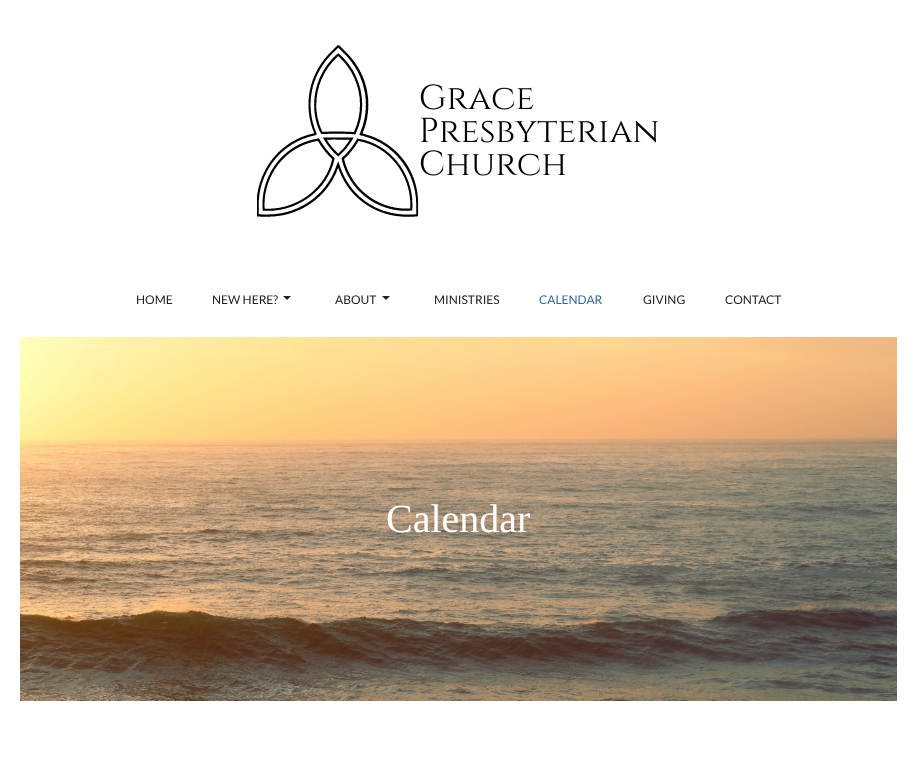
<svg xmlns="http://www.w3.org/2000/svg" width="917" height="784">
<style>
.a{font:12px Lato;fill:#212121}
.b{font:12px Lato;fill:#369}
.c{font:40px Tinos;fill:#fff}
</style>
<rect width="100%" height="100%" fill="#fff"/>
<image href="1.png" x="257" y="45" width="402" height="172"/>
<path fill="#212121" d="M283 296h8l-4 4z"/>
<path fill="#212121" d="M382 296h8l-4 4z"/>
<image href="2.png" x="20" y="337" width="877" height="364"/>
<text class="a" x="136" y="304">HOME</text>
<text class="a" x="212" y="304">NEW HERE?</text>
<text class="a" x="335" y="304">ABOUT</text>
<text class="a" x="434" y="304">MINISTRIES</text>
<text class="b" x="539" y="304">CALENDAR</text>
<text class="a" x="643" y="304">GIVING</text>
<text class="a" x="725" y="304">CONTACT</text>
<text class="c" x="386" y="532">Calendar</text>
</svg>
